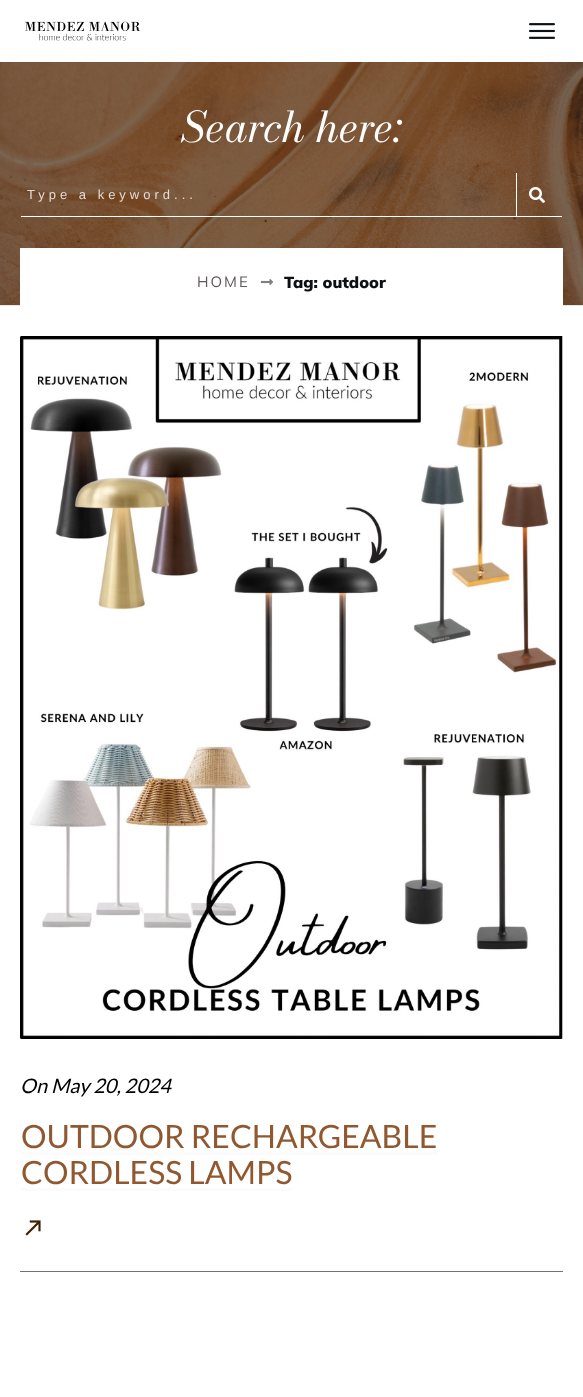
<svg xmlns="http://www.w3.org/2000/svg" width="583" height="1397">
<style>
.a{font:italic 42px Bodoni Moda;fill:#fff}
.b{font:13px Liberation Sans;letter-spacing:4px;fill:#e3dcd5}
.c{font:15px Mulish;letter-spacing:2px;fill:#5f5959}
.d{font:900 16px Mulish;fill:#0c1115}
.e{font:italic 20px Lato;fill:#000}
.f{font:32px Lato;fill:#915830}
</style>
<rect width="100%" height="100%" fill="#fff"/>
<image href="1.png" x="25" y="21" width="115" height="20"/>
<image href="2.png" x="529" y="23" width="26" height="16"/>
<image href="3.png" x="0" y="62" width="583" height="243"/>
<path fill="#e6e6e6" d="M0 305h583v1H0z"/>
<path fill="#fff" d="M21 216h541v1H21z"/>
<path fill="#fff" d="M516 173h1v44H516z"/>
<image href="4.png" x="529" y="187" width="16" height="16"/>
<path fill="#fff" d="M20 248h543v58H20z"/>
<image href="5.png" x="260" y="279" width="13" height="6"/>
<path fill="#737373" d="M20 1271h543v1H20z"/>
<image href="6.png" x="20" y="336" width="543" height="703"/>
<path fill="#fbfbfb" d="M21 1152h416v3H21z"/>
<path fill="#fbfbfb" d="M21 1188h271v3H21z"/>
<image href="7.png" x="25" y="1220" width="16" height="16"/>
<text class="a" x="182" y="142">Search here:</text>
<text class="b" x="27" y="199">Type a keyword...</text>
<text class="c" x="197" y="287">HOME</text>
<text class="d" x="284" y="288">Tag: outdoor</text>
<text class="e" x="20" y="1093">On May 20, 2024</text>
<text class="f" x="21" y="1148">OUTDOOR RECHARGEABLE</text>
<text class="f" x="21" y="1184">CORDLESS LAMPS</text>
</svg>
